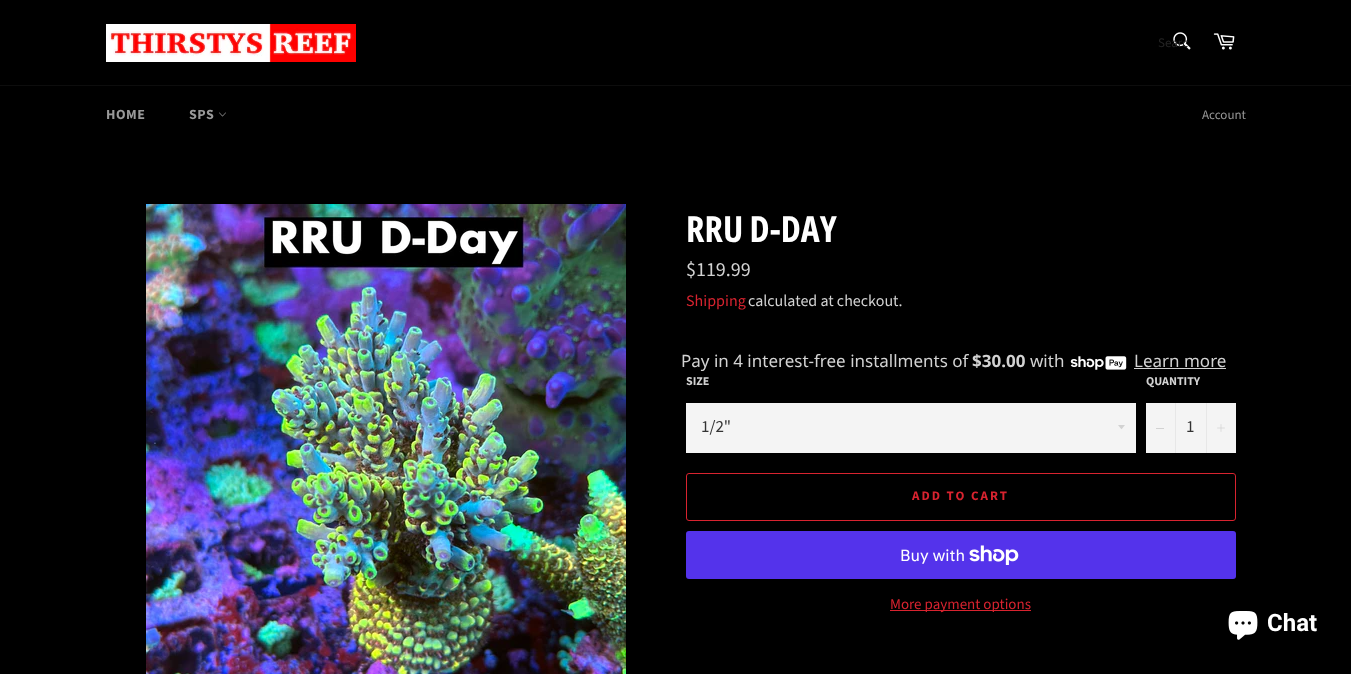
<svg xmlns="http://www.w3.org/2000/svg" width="1351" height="674">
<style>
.a{font:13px Source Sans Pro;fill:#242424}
.b{font:bold 14px Source Sans Pro;letter-spacing:0.5px;fill:#999}
.c{font:13px Source Sans Pro;fill:#999}
.d{font:bold 36px Open Sans Condensed;fill:#fff}
.e{font:20px Source Sans Pro;fill:#d2d2d2}
.f{font:16px Source Sans Pro;fill:#d8232f}
.g{font:16px Source Sans Pro;fill:#d2d2d2}
.h{font:17px Noto Sans;fill:#d2d2d2}
.i{font:bold 17px Noto Sans;fill:#d2d2d2}
.j{font:bold 12px Source Sans Pro;fill:#d2d2d2}
.k{font:17px Source Sans Pro;fill:#333}
.l{font:bold 13px Source Sans Pro;letter-spacing:2px;fill:#d8232f}
.m{font:16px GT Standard;fill:#fff}
.n{font:15px Source Sans Pro;fill:#d8232f}
.o{font:bold 24px Roboto;fill:#fff}
</style>
<rect width="100%" height="100%" fill="#000"/>
<image href="1.png" x="106" y="24" width="250" height="38"/>
<image href="2.png" x="1173" y="32" width="18" height="18"/>
<image href="3.png" x="1213" y="33" width="22" height="17"/>
<path fill="#0d0d0d" d="M0 85h1351v1H0z"/>
<image href="4.png" x="219" y="112" width="7" height="5"/>
<image href="5.png" x="146" y="204" width="480" height="470"/>
<image href="6.png" x="1070" y="356" width="57" height="14"/>
<path fill="#d2d2d2" d="M1134 368h92v1H1134z"/>
<path fill="#f4f4f4" d="M686 403h450v50H686z"/>
<path fill="#d2d2d2" d="M1118 425c4.5 5.5 2.5 5.5 7 0z"/>
<path fill="#f4f4f4" d="M1146 403h90v50H1146z"/>
<path fill="#e7e7e7" d="M1175 403h1v50H1175z"/>
<path fill="#d2d2d2" d="M1156 428h8v1H1156z"/>
<path fill="#e7e7e7" d="M1206 403h1v50H1206z"/>
<image href="7.png" x="1217" y="424" width="8" height="8"/>
<rect fill="none" stroke="#d8232f" x="686.5" y="473.5" width="549" height="47" rx="2.5"/>
<rect fill="#5433eb" x="686" y="531" width="550" height="48" rx="3"/>
<image href="8.png" x="969" y="545" width="50" height="20"/>
<path fill="#d8232f" d="M890 610h141v1H890z"/>
<image href="9.png" x="1228" y="611" width="30" height="29"/>
<text class="a" x="1158" y="47">Searc</text>
<text class="b" x="106" y="119">HOME</text>
<text class="b" x="189" y="119">SPS</text>
<text class="c" x="1202" y="119">Account</text>
<text class="d" x="686" y="242">RRU D-DAY</text>
<text class="e" x="686" y="276">$119.99</text>
<text class="f" x="686" y="306">Shipping</text>
<text class="g" x="748" y="306">calculated at checkout.</text>
<text class="h" x="681" y="367">Pay in 4 interest-free installments of</text>
<text class="i" x="972" y="367">$30.00</text>
<text class="h" x="1030" y="367">with</text>
<text class="h" x="1134" y="367">Learn more</text>
<text class="j" x="686" y="385">SIZE</text>
<text class="k" x="701" y="432">1/2"</text>
<text class="j" x="1146" y="385">QUANTITY</text>
<text class="k" x="1186" y="432">1</text>
<text class="l" x="912" y="500">ADD TO CART</text>
<text class="m" x="900" y="561">Buy with</text>
<text class="n" x="890" y="609">More payment options</text>
<text class="o" x="1267" y="631">Chat</text>
</svg>
